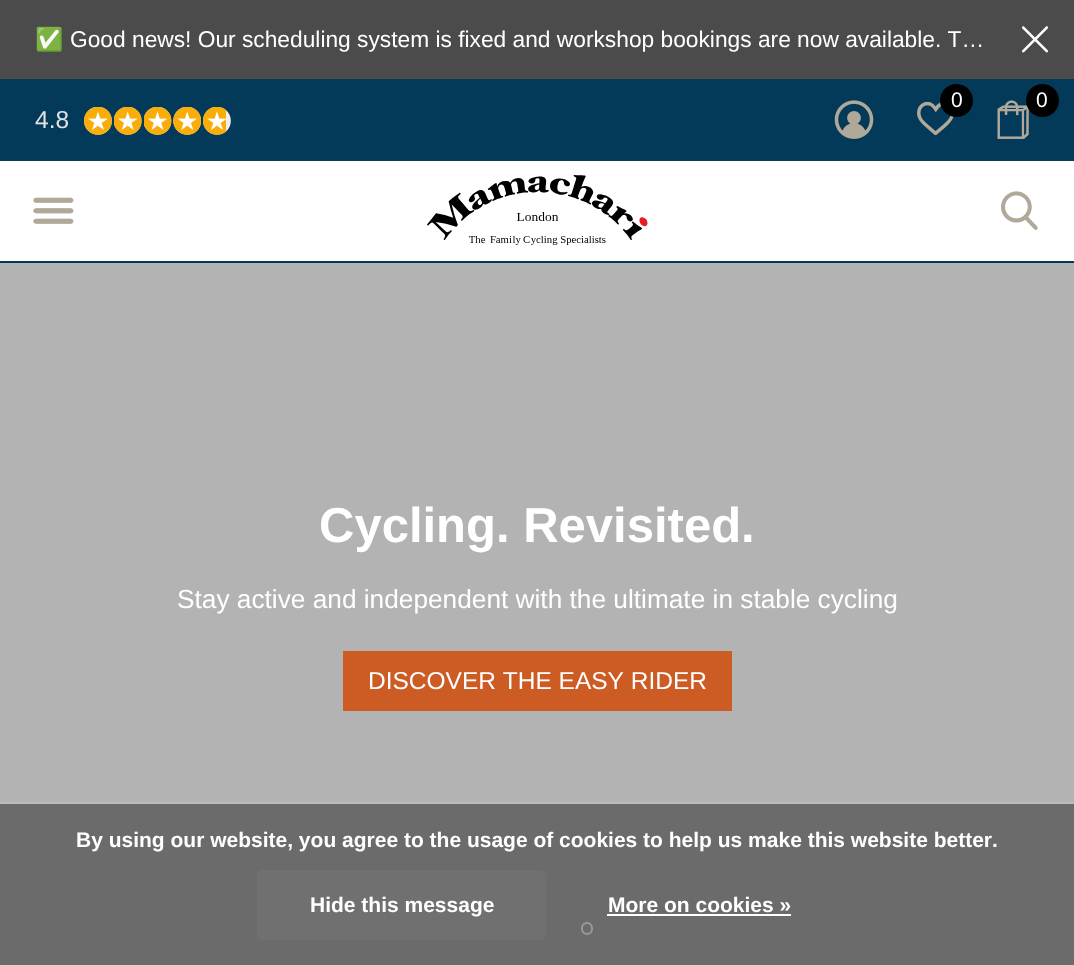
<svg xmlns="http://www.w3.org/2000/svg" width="1074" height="965">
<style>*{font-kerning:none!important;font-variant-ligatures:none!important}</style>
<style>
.a{font:22.75px Noto Color Emoji;fill:#fff}
.b{font:22.75px Arimo;fill:#fff}
.c{font:21px Arimo;fill:#fff}
.d{font:24.5px Arimo;fill:#e1e1e1}
.e{font:bold 49px Liberation Sans;fill:#fff}
.f{font:26.25px Arimo;fill:#fff}
.g{font:24.5px Arimo;fill:#fff}
.h{font:bold 21px Arimo;fill:#fff}
</style>
<rect width="100%" height="100%" fill="#b3b3b3"/>
<path fill="#4b4b4b" d="M0 0h1074v79H0z"/>
<image href="1.png" x="1022" y="26" width="26" height="27"/>
<path fill="#043a59" d="M0 79h1074v82H0z"/>
<image href="2.png" x="834" y="100" width="40" height="39"/>
<image href="3.png" x="917" y="101" width="37" height="35"/>
<circle fill="#000" cx="956.5" cy="100.5" r="16.5"/>
<image href="4.png" x="997" y="100" width="32" height="39"/>
<circle fill="#000" cx="1042.5" cy="100.5" r="16.5"/>
<path fill="#fff" d="M0 161h1074v100H0z"/>
<image href="5.png" x="1001" y="191" width="37" height="39"/>
<image href="6.png" x="84" y="107" width="28" height="28"/>
<image href="7.png" x="84" y="107" width="28" height="28"/>
<image href="8.png" x="114" y="107" width="28" height="28"/>
<image href="9.png" x="114" y="107" width="28" height="28"/>
<image href="10.png" x="144" y="107" width="28" height="28"/>
<image href="11.png" x="144" y="107" width="28" height="28"/>
<image href="12.png" x="173" y="107" width="28" height="28"/>
<image href="13.png" x="173" y="107" width="28" height="28"/>
<image href="6.png" x="203" y="107" width="28" height="28"/>
<image href="14.png" x="203" y="107" width="23" height="28"/>
<path fill="#043a59" d="M0 261h1074v2H0z"/>
<image href="15.png" x="33" y="197" width="41" height="27"/>
<image href="16.png" x="427" y="175" width="221" height="70"/>
<path fill="#cd5b24" d="M343 651h389v60H343z"/>
<path fill="#6b6b6b" d="M0 804h1074v161H0z"/>
<rect fill="none" stroke="#999" stroke-width="2" x="582" y="923" width="10" height="11" rx="5"/>
<path fill="#bbb" d="M0 802h1074v2H0z"/>
<rect fill="#707070" x="257" y="870" width="289" height="70" rx="5"/>
<path fill="#fff" d="M607 914h184v2H607z"/>
<text class="a" x="35" y="47">✅</text>
<text class="b" x="70" y="47">Good news! Our scheduling system is fixed and workshop bookings are now available. T…</text>
<text class="c" x="951" y="107">0</text>
<text class="c" x="1036" y="107">0</text>
<text class="d" x="35" y="128">4.8</text>
<text class="e" x="319" y="542">Cycling. Revisited.</text>
<text class="f" x="177" y="608">Stay active and independent with the ultimate in stable cycling</text>
<text class="g" x="368" y="689">DISCOVER THE EASY RIDER</text>
<text class="h" x="76" y="847">By using our website, you agree to the usage of cookies to help us make this website better.</text>
<text class="h" x="310" y="912">Hide this message</text>
<text class="h" x="608" y="912">More on cookies »</text>
</svg>
